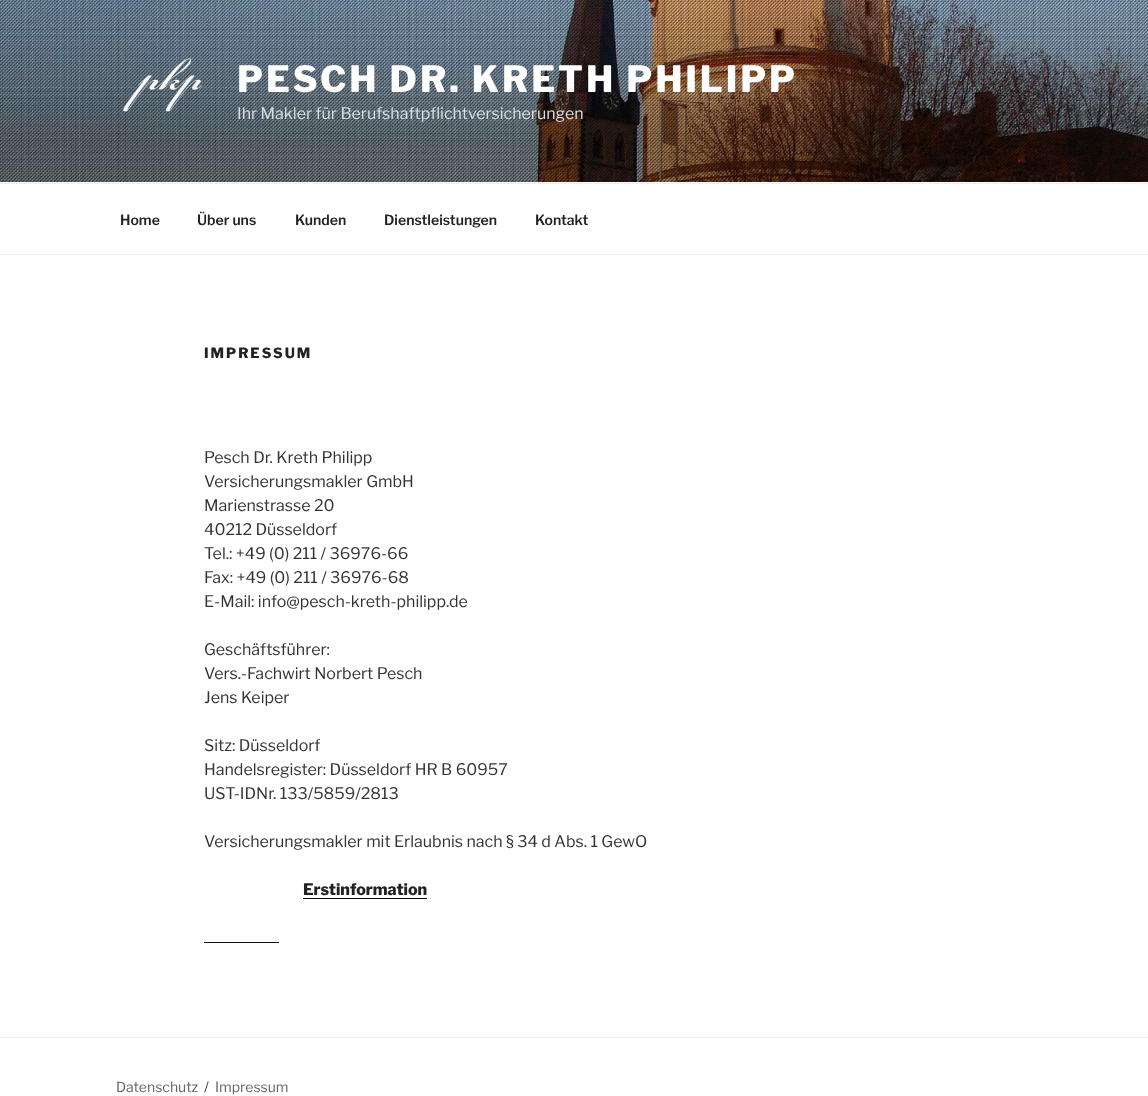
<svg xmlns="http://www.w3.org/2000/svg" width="1148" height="1096">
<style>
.a{font:800 36px Libre Franklin;letter-spacing:2.9px;fill:#fff}
.b{font:16px Libre Franklin;fill:#dcdee0}
.c{font:600 14px Libre Franklin;fill:#222}
.d{font:800 14px Libre Franklin;letter-spacing:2px;fill:#222}
.e{font:16px Libre Franklin;fill:#333}
.f{font:800 16px Libre Franklin;fill:#222}
.g{font:14px Libre Franklin;fill:#666}
.h{font:14px Libre Franklin;fill:#333}
</style>
<rect width="100%" height="100%" fill="#fff"/>
<path fill="#fafafa" d="M0 182h1148v1H0z"/>
<image href="1.png" x="0" y="0" width="1148" height="182"/>
<image href="2.png" x="123" y="58" width="79" height="54"/>
<path fill="#eee" d="M0 183h1148v1H0z"/>
<path fill="#eee" d="M0 254h1148v1H0z"/>
<path fill="#0f0f0f" d="M303 898h124v1H303z"/>
<path fill="#0f0f0f" d="M204 942h75v1H204z"/>
<path fill="#eee" d="M0 1037h1148v1H0z"/>
<text class="a" x="237" y="92">PESCH DR. KRETH PHILIPP</text>
<text class="b" x="237" y="119">Ihr Makler für Berufshaftpflichtversicherungen</text>
<text class="c" x="120" y="225">Home</text>
<text class="c" x="197" y="225">Über uns</text>
<text class="c" x="295" y="225">Kunden</text>
<text class="c" x="384" y="225">Dienstleistungen</text>
<text class="c" x="535" y="225">Kontakt</text>
<text class="d" x="204" y="358">IMPRESSUM</text>
<text class="e" x="204" y="463">Pesch Dr. Kreth Philipp</text>
<text class="e" x="204" y="487">Versicherungsmakler GmbH</text>
<text class="e" x="204" y="511">Marienstrasse 20</text>
<text class="e" x="204" y="535">40212 Düsseldorf</text>
<text class="e" x="204" y="559">Tel.: +49 (0) 211 / 36976-66</text>
<text class="e" x="204" y="583">Fax: +49 (0) 211 / 36976-68</text>
<text class="e" x="204" y="607">E-Mail: info@pesch-kreth-philipp.de</text>
<text class="e" x="204" y="655">Geschäftsführer:</text>
<text class="e" x="204" y="679">Vers.-Fachwirt Norbert Pesch</text>
<text class="e" x="204" y="703">Jens Keiper</text>
<text class="e" x="204" y="751">Sitz: Düsseldorf</text>
<text class="e" x="204" y="775">Handelsregister: Düsseldorf HR B 60957</text>
<text class="e" x="204" y="799">UST-IDNr. 133/5859/2813</text>
<text class="e" x="204" y="847">Versicherungsmakler mit Erlaubnis nach § 34 d Abs. 1 GewO</text>
<text class="f" x="303" y="895">Erstinformation</text>
<text class="g" x="116" y="1092">Datenschutz</text>
<text class="h" x="204" y="1092">/</text>
<text class="g" x="215" y="1092">Impressum</text>
</svg>
